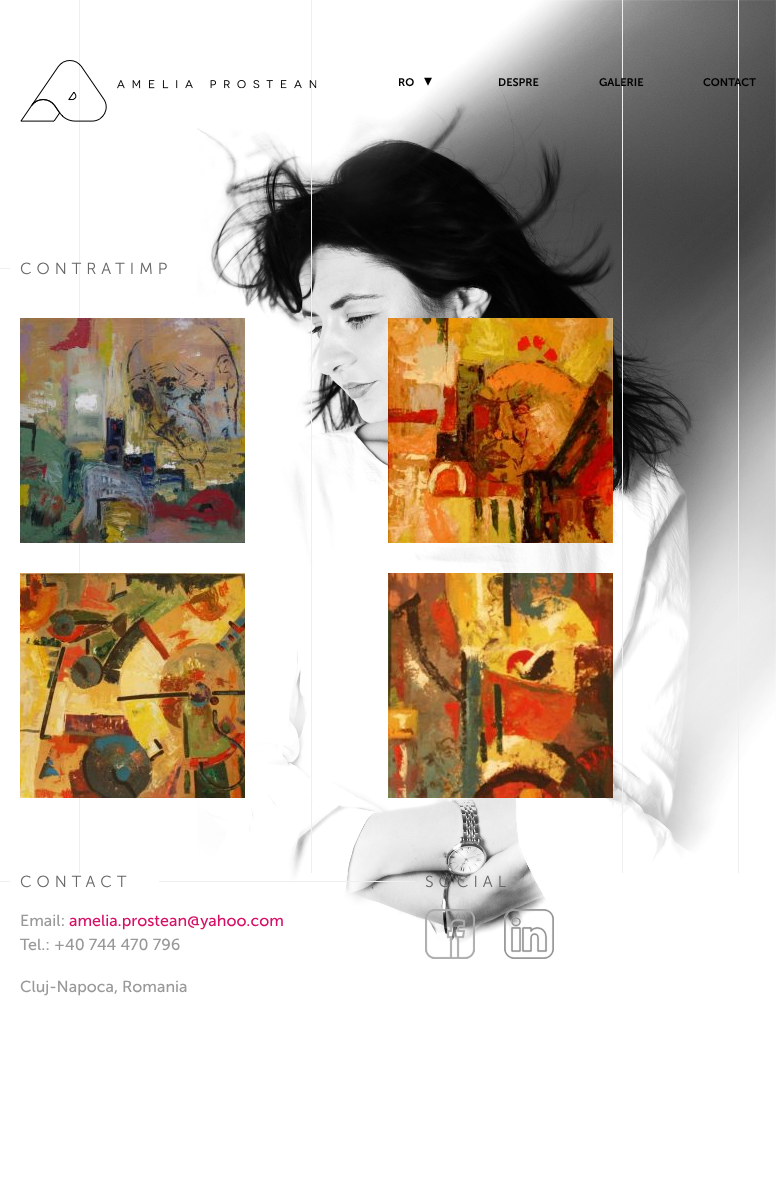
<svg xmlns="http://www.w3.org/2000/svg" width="776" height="1184">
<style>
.a{font:600 11px Museo Sans;fill:#000}
.b{font:16px DejaVu Sans;fill:#000}
.c{font:300 16px Museo Sans;letter-spacing:5px;fill:#666}
.d{font:16px Museo Sans;fill:#999}
.e{font:16px Museo Sans;fill:#d51067}
</style>
<rect width="100%" height="100%" fill="#fff"/>
<image href="1.png" x="197" y="0" width="579" height="943"/>
<path fill="#efefef" d="M79 0h1v873H79z"/>
<path fill="#efefef" d="M311 0h1v873H311z"/>
<path fill="#efefef" d="M622 0h1v873H622z"/>
<path fill="#efefef" d="M738 0h1v873H738z"/>
<image href="2.png" x="20" y="60" width="297" height="62"/>
<path fill="#efefef" d="M0 268h10v1H0z"/>
<image href="3.png" x="20" y="318" width="225" height="225"/>
<image href="4.png" x="388" y="318" width="225" height="225"/>
<image href="5.png" x="20" y="573" width="225" height="225"/>
<image href="6.png" x="388" y="573" width="225" height="225"/>
<path fill="#efefef" d="M0 881h10v1H0z"/>
<path fill="#efefef" d="M159 881h256v1H159z"/>
<image href="7.png" x="425" y="909" width="50" height="50"/>
<image href="8.png" x="504" y="909" width="50" height="50"/>
<text class="a" x="398" y="86">RO</text>
<text class="b" x="424" y="86">▾</text>
<text class="a" x="498" y="86">DESPRE</text>
<text class="a" x="599" y="86">GALERIE</text>
<text class="a" x="703" y="86">CONTACT</text>
<text class="c" x="20" y="274">CONTRATIMP</text>
<text class="c" x="20" y="887">CONTACT</text>
<text class="d" x="20" y="926">Email:</text>
<text class="e" x="69" y="926">amelia.prostean@yahoo.com</text>
<text class="d" x="20" y="950">Tel.: +40 744 470 796</text>
<text class="d" x="20" y="992">Cluj-Napoca, Romania</text>
<text class="c" x="425" y="887">SOCIAL</text>
</svg>
